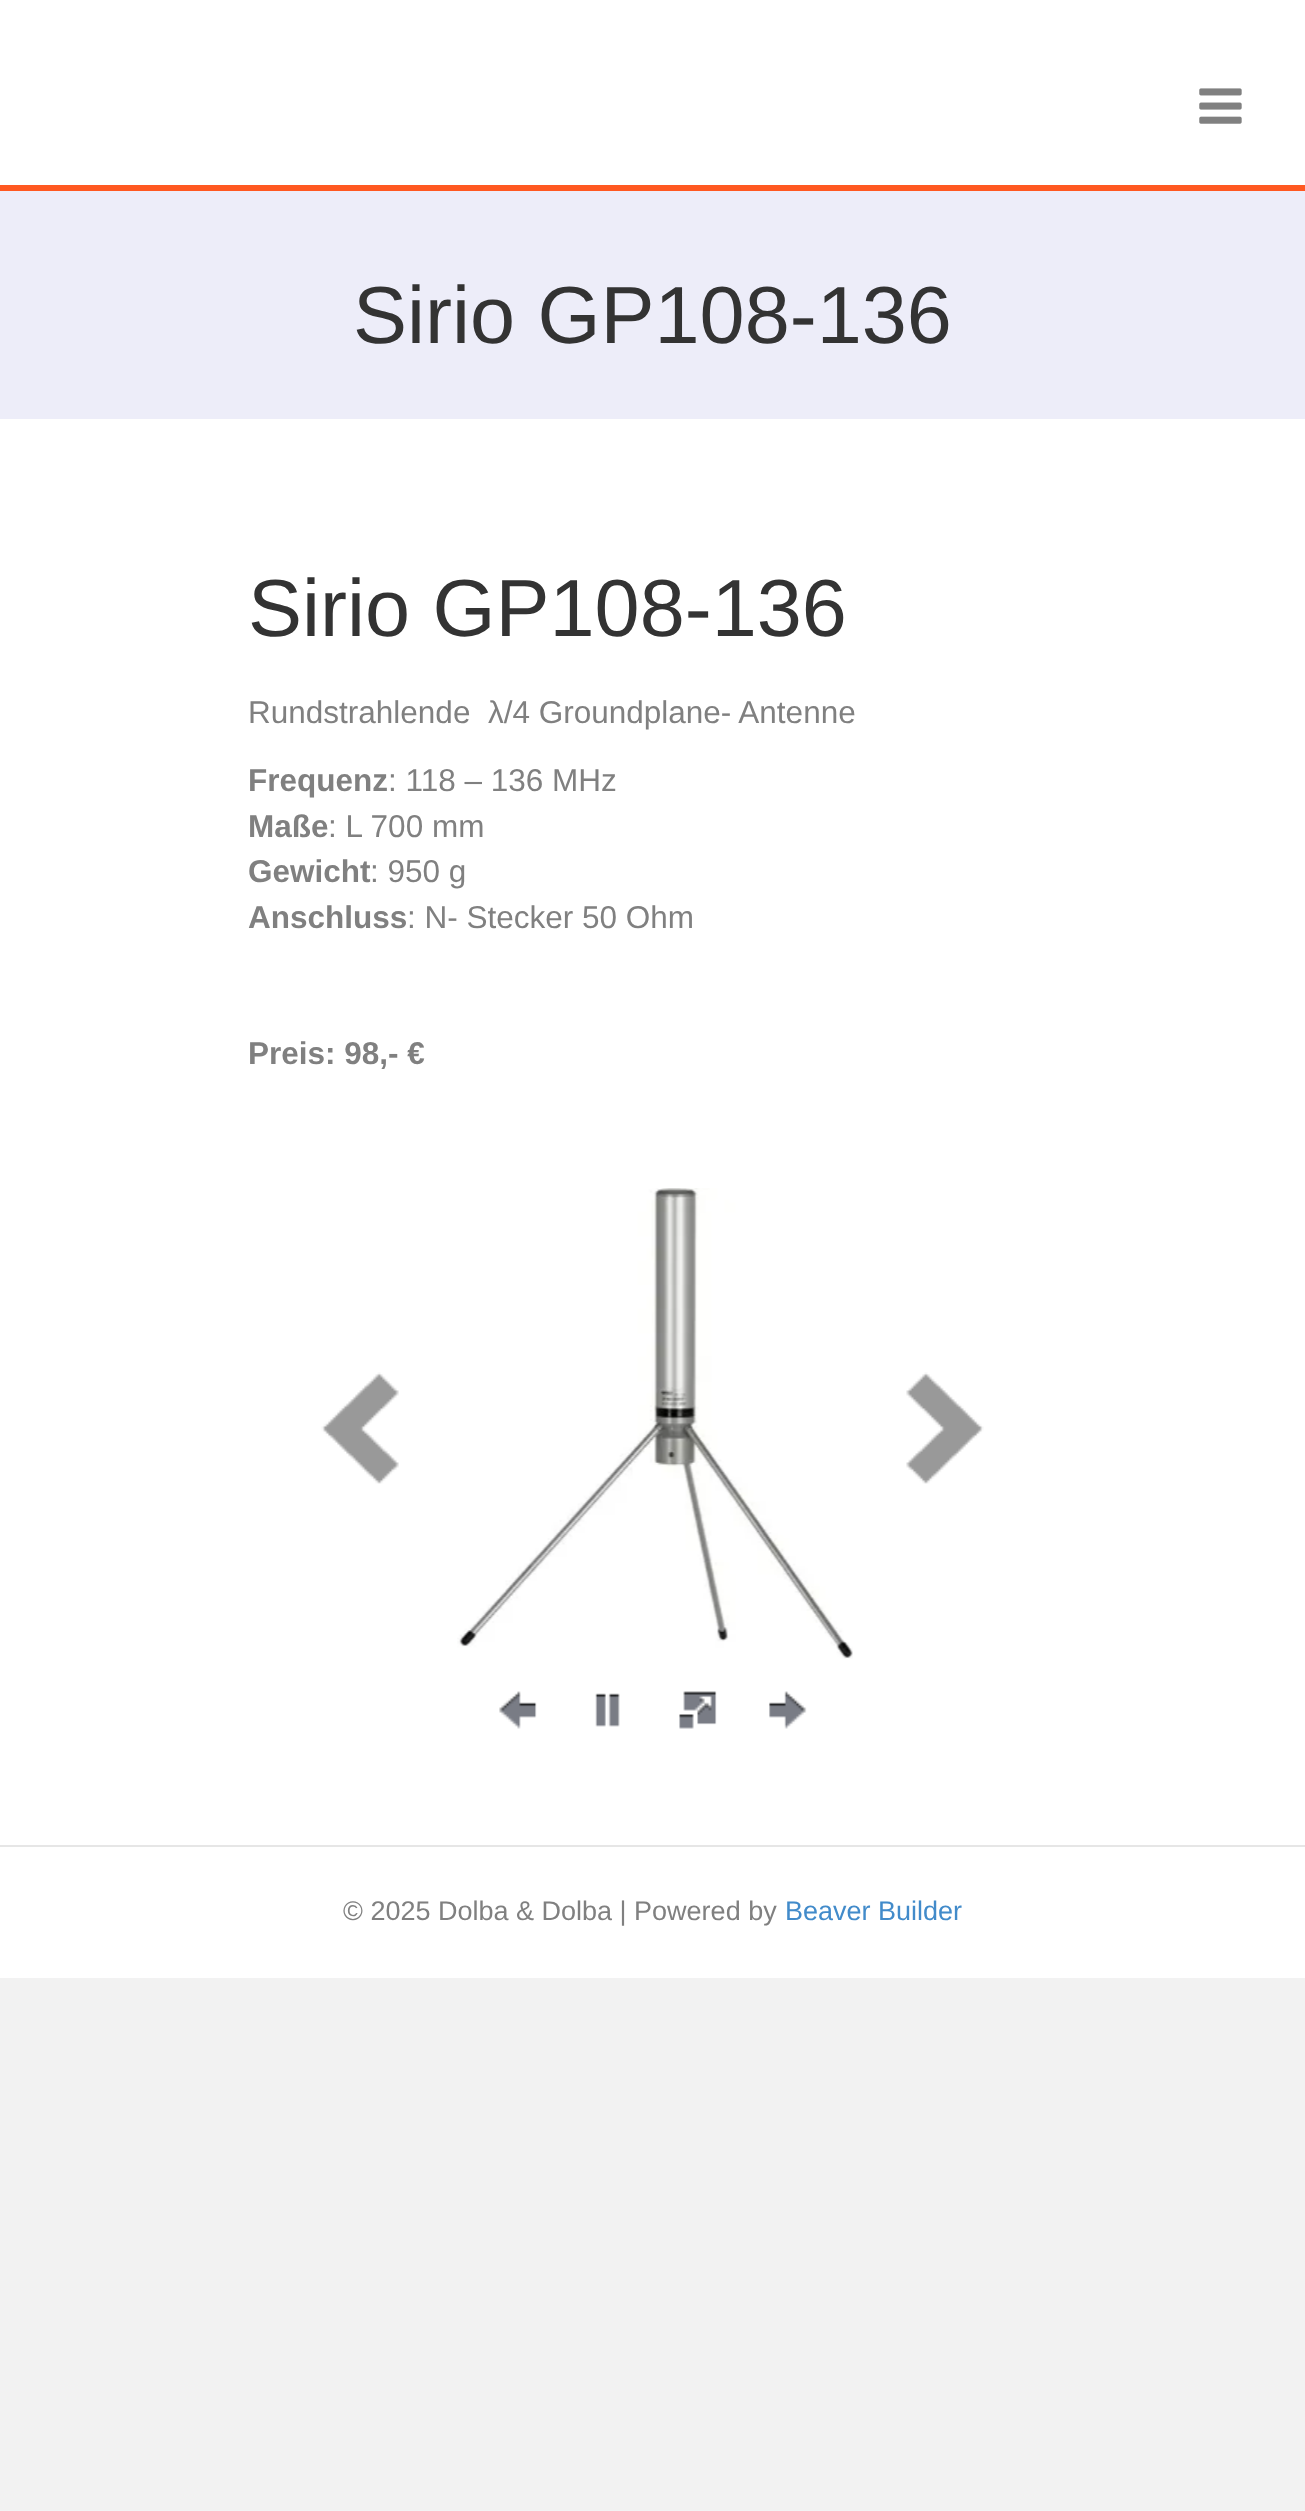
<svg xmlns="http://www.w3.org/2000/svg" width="1305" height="2511">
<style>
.a{font:81px Liberation Sans;fill:#333}
.b{font:31.5px Liberation Sans;fill:#808080}
.c{font:bold 31.5px Liberation Sans;fill:#808080}
.d{font:27px Liberation Sans;fill:#808080}
.e{font:27px Liberation Sans;fill:#428bca}
</style>
<rect width="100%" height="100%" fill="#f2f2f2"/>
<path fill="#fff" d="M0 0h1305v185H0z"/>
<path fill="#ff5821" d="M0 185h1305v6H0z"/>
<image href="1.png" x="1199" y="88" width="43" height="36"/>
<path fill="#fff" d="M0 419h1305v1426H0z"/>
<path fill="#ededf9" d="M0 191h1305v228H0z"/>
<image href="2.png" x="321" y="1372" width="78" height="112"/>
<image href="3.png" x="457" y="1188" width="396" height="471"/>
<image href="4.png" x="906" y="1372" width="78" height="112"/>
<image href="5.png" x="499" y="1691" width="38" height="38"/>
<image href="6.png" x="595" y="1693" width="25" height="34"/>
<image href="7.png" x="679" y="1691" width="38" height="38"/>
<image href="8.png" x="769" y="1691" width="38" height="38"/>
<path fill="#fff" d="M0 1847h1305v131H0z"/>
<path fill="#e6e6e6" d="M0 1845h1305v2H0z"/>
<text class="a" x="353" y="343">Sirio GP108-136</text>
<text class="a" x="248" y="636">Sirio GP108-136</text>
<text class="b" xml:space="preserve" x="248" y="723">Rundstrahlende  λ/4 Groundplane- Antenne</text>
<text class="c" x="248" y="791">Frequenz</text>
<text class="b" x="388" y="791">: 118 – 136 MHz</text>
<text class="c" x="248" y="837">Maße</text>
<text class="b" x="328" y="837">: L 700 mm</text>
<text class="c" x="248" y="882">Gewicht</text>
<text class="b" x="370" y="882">: 950 g</text>
<text class="c" x="248" y="928">Anschluss</text>
<text class="b" x="407" y="928">: N- Stecker 50 Ohm</text>
<text class="c" x="248" y="1064">Preis: 98,- €</text>
<text class="d" x="343" y="1920">© 2025 Dolba &amp; Dolba | Powered by</text>
<text class="e" x="785" y="1920">Beaver Builder</text>
</svg>
